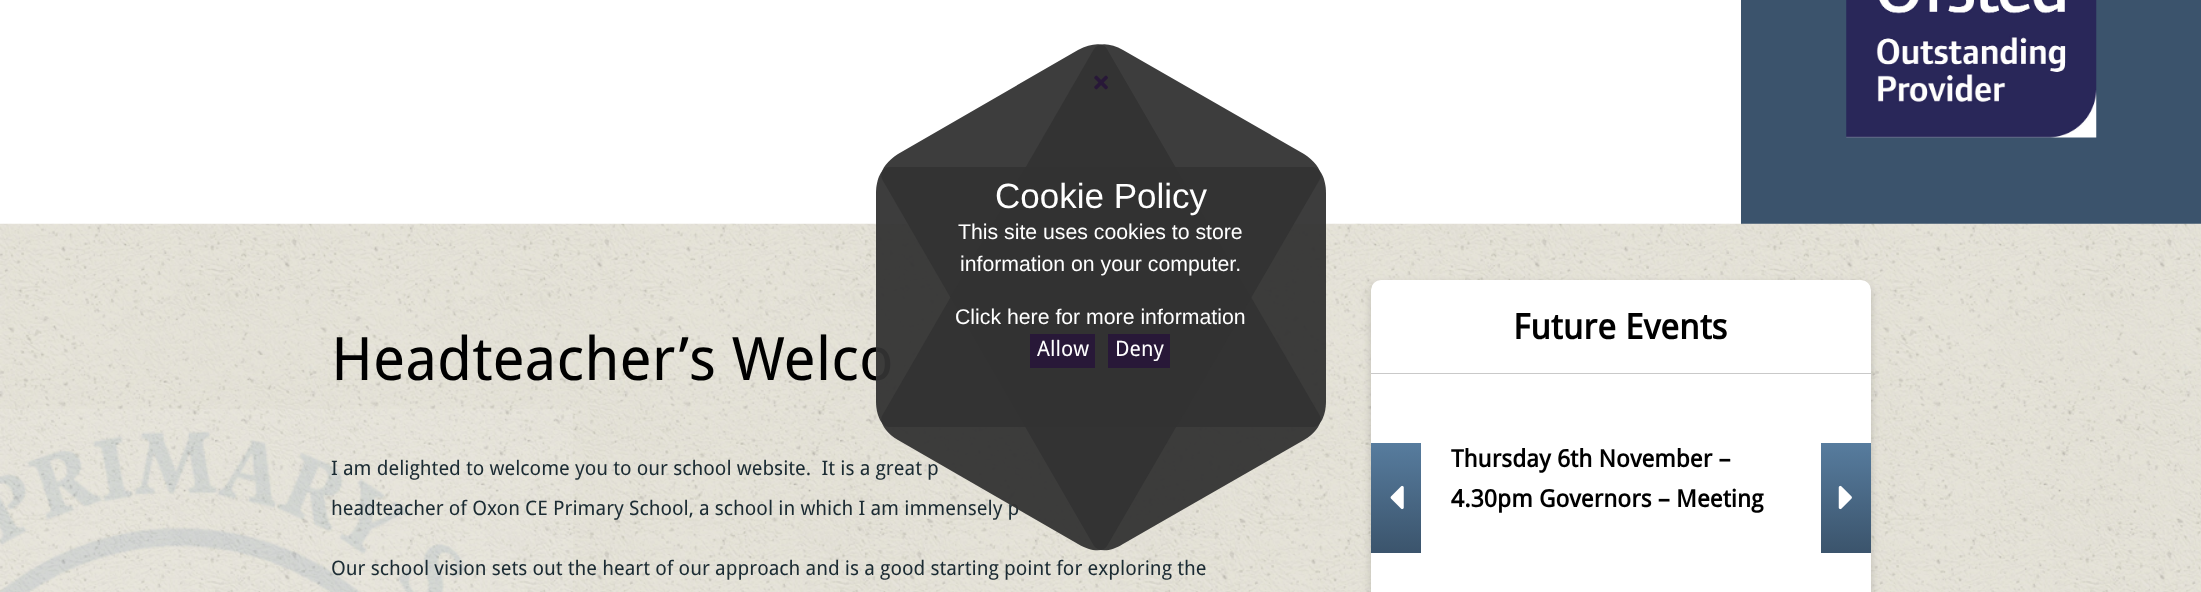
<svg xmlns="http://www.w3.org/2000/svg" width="2201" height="592">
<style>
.a{font:60px Droid Sans;fill:#000}
.b{font:20px Droid Sans;fill:#1b2b33}
.c{font:21.25px Droid Sans;fill:#fff}
.d{font:21.25px Liberation Sans;fill:#fff}
.e{font:35px Liberation Sans;fill:#fff}
.f{font:bold 35px Droid Sans;fill:#000}
.g{font:bold 24px Droid Sans;fill:#000}
</style>
<defs>
<linearGradient id="g1" gradientUnits="userSpaceOnUse" x1="1396" y1="443" x2="1396" y2="553"><stop offset="0" stop-color="#577c9e"/><stop offset="1" stop-color="#3b546c"/></linearGradient>
<linearGradient id="g2" gradientUnits="userSpaceOnUse" x1="1846" y1="443" x2="1846" y2="553"><stop offset="0" stop-color="#577c9e"/><stop offset="1" stop-color="#3b546c"/></linearGradient>
</defs>
<rect width="100%" height="100%" fill="#fff"/>
<path fill="#3b536c" d="M1741 0h460v224H1741z"/>
<image href="2.png" x="1846" y="0" width="251" height="138"/>
<image href="3.png" x="0" y="223" width="2201" height="369"/>
<image href="4.png" x="0" y="409" width="573" height="183"/>
<rect fill="#00000029" filter="blur(4px)" x="1371" y="284" width="500" height="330" rx="10"/>
<rect fill="#fff" x="1371" y="280" width="500" height="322" rx="10"/>
<path fill="#c9c9c9" d="M1371 373h500v1H1371z"/>
<path fill="url(#g1)" d="M1371 443h50v110H1371z"/>
<image href="5.png" x="1390" y="485" width="14" height="25"/>
<path fill="url(#g2)" d="M1821 443h50v110H1821z"/>
<image href="6.png" x="1838" y="485" width="14" height="25"/>
<text class="a" x="331" y="380">Headteacher’s Welco</text>
<path fill="#333333f2" d="M1326 193v208c0 15-6 26-13 26h-424c-7 0-13-11-13-26v-208c0-14 6-26 13-26h424c7 0 13 12 13 26z"/>
<text class="b" xml:space="preserve" x="331" y="475">I am delighted to welcome you to our school website.  It is a great p</text>
<text class="b" x="331" y="515">headteacher of Oxon CE Primary School, a school in which I am immensely p</text>
<path fill="#333333f2" d="M1304 440l-181 104c-12 8-25 8-29 2l-212-367c-3-7 4-17 16-25l180-104c13-7 26-8 29-1l213 367c3 6-4 17-16 24z"/>
<path fill="#333333f2" d="M1123 50l181 104c12 8 19 18 16 25l-213 367c-3 6-16 6-29-2l-180-104c-12-7-19-18-16-24l212-367c4-7 17-6 29 1z"/>
<image href="1.png" x="1094" y="75" width="14" height="15"/>
<path fill="#281838" d="M1108 334h62v34H1108z"/>
<text class="c" x="1115" y="356">Deny</text>
<path fill="#281838" d="M1030 334h65v34H1030z"/>
<text class="c" x="1037" y="356">Allow</text>
<text class="d" x="955" y="324">Click here for more information</text>
<text class="d" x="960" y="271">information on your computer.</text>
<text class="d" x="958" y="239">This site uses cookies to store</text>
<text class="e" x="995" y="208">Cookie Policy</text>
<text class="b" x="331" y="575">Our school vision sets out the heart of our approach and is a good starting point for exploring the</text>
<text class="f" x="1513" y="339">Future Events</text>
<text class="g" x="1451" y="467">Thursday 6th November –</text>
<text class="g" x="1451" y="507">4.30pm Governors – Meeting</text>
</svg>
